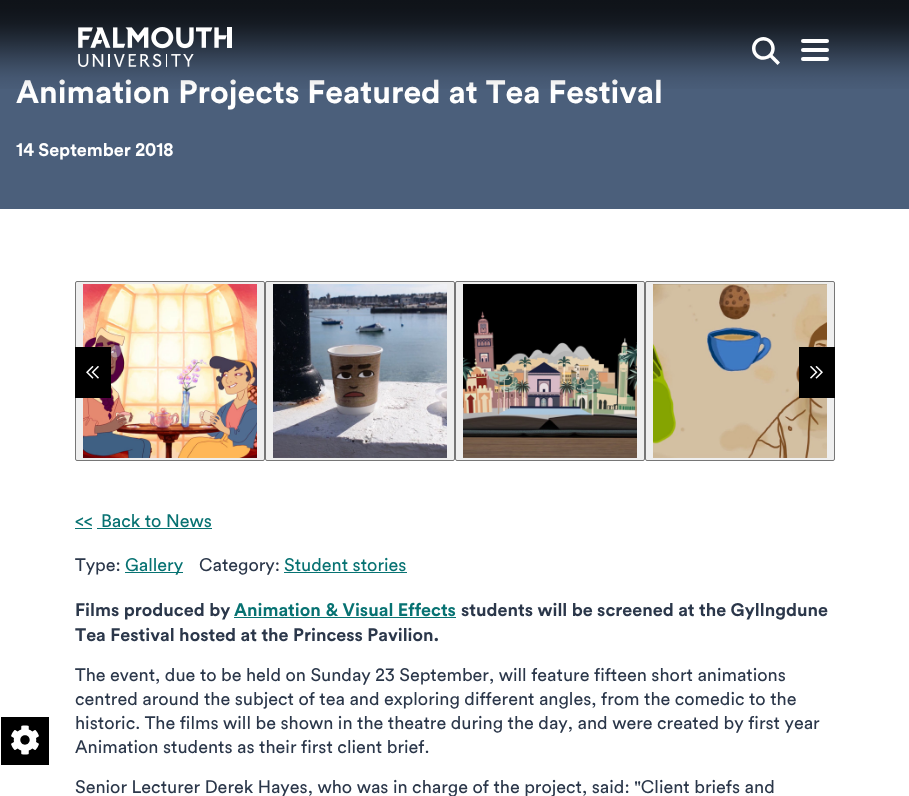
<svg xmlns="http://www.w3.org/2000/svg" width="909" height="796">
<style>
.a{font:bold 32px Circular;fill:#fff}
.b{font:bold 18px Circular;fill:#fff}
.c{font:18px Circular;fill:#077272}
.d{font:18px Circular;fill:#2b374a}
.e{font:bold 18px Circular;fill:#2b374a}
.f{font:bold 18px Circular;fill:#077272}
</style>
<defs>
<linearGradient id="g1" gradientUnits="userSpaceOnUse" x1="455" y1="0" x2="455" y2="100"><stop offset="0" stop-color="#000" stop-opacity="0.8"/><stop offset="0.08" stop-color="#000" stop-opacity="0.79"/><stop offset="0.15" stop-color="#000" stop-opacity="0.76"/><stop offset="0.23" stop-color="#000" stop-opacity="0.72"/><stop offset="0.29" stop-color="#000" stop-opacity="0.66"/><stop offset="0.35" stop-color="#000" stop-opacity="0.59"/><stop offset="0.41" stop-color="#000" stop-opacity="0.52"/><stop offset="0.47" stop-color="#000" stop-opacity="0.44"/><stop offset="0.53" stop-color="#000" stop-opacity="0.36"/><stop offset="0.59" stop-color="#000" stop-opacity="0.28"/><stop offset="0.65" stop-color="#000" stop-opacity="0.21"/><stop offset="0.71" stop-color="#000" stop-opacity="0.14"/><stop offset="0.78" stop-color="#000" stop-opacity="0.08"/><stop offset="0.85" stop-color="#000" stop-opacity="0.04"/><stop offset="0.92" stop-color="#000" stop-opacity="0.01"/><stop offset="1" stop-color="#000" stop-opacity="0"/></linearGradient>
</defs>
<rect width="100%" height="100%" fill="#fff"/>
<path fill="#4b5f7b" d="M0 0h909v209H0z"/>
<rect fill="#efefef" stroke="#767676" x="75.5" y="281.5" width="189" height="179" rx="1.5"/>
<image href="3.png" x="83" y="284" width="174" height="174"/>
<rect fill="#efefef" stroke="#767676" x="265.5" y="281.5" width="189" height="179" rx="1.5"/>
<image href="4.png" x="273" y="284" width="174" height="174"/>
<rect fill="#efefef" stroke="#767676" x="455.5" y="281.5" width="189" height="179" rx="1.5"/>
<image href="5.png" x="463" y="284" width="174" height="174"/>
<rect fill="#efefef" stroke="#767676" x="645.5" y="281.5" width="189" height="179" rx="1.5"/>
<image href="6.png" x="653" y="284" width="174" height="174"/>
<path fill="#000" d="M75 347h36v51H75z"/>
<image href="7.png" x="86" y="366" width="13" height="13"/>
<path fill="#000" d="M799 347h36v51H799z"/>
<image href="8.png" x="810" y="366" width="13" height="13"/>
<path fill="#077272" d="M75 528h17v1H75z"/>
<path fill="#077272" d="M97 528h115v1H97z"/>
<path fill="#077272" d="M125 572h58v1H125z"/>
<path fill="#077272" d="M284 572h123v1H284z"/>
<path fill="#077272" d="M234 617h222v1H234z"/>
<path fill="#000" d="M1 717h48v48H1z"/>
<image href="9.png" x="11" y="725" width="28" height="30"/>
<text class="a" x="16" y="103">Animation Projects Featured at Tea Festival</text>
<path fill="url(#g1)" d="M0 0h909v89H0z"/>
<rect fill="#fff" x="801" y="57" width="28" height="4" rx="2"/>
<rect fill="#fff" x="801" y="48" width="28" height="4" rx="2"/>
<rect fill="#fff" x="801" y="39" width="28" height="4" rx="2"/>
<image href="2.png" x="752" y="37" width="28" height="28"/>
<image href="1.png" x="78" y="27" width="154" height="40"/>
<text class="b" x="16" y="156">14 September 2018</text>
<text class="c" x="75" y="527">&lt;&lt;</text>
<text class="c" x="101" y="527">Back to News</text>
<text class="d" x="75" y="571">Type:</text>
<text class="c" x="125" y="571">Gallery</text>
<text class="d" x="199" y="571">Category:</text>
<text class="c" x="284" y="571">Student stories</text>
<text class="e" x="75" y="616">Films produced by</text>
<text class="f" x="234" y="616">Animation &amp; Visual Effects</text>
<text class="e" x="461" y="616">students will be screened at the Gyllngdune</text>
<text class="e" x="75" y="641">Tea Festival hosted at the Princess Pavilion.</text>
<text class="d" x="75" y="681">The event, due to be held on Sunday 23 September, will feature fifteen short animations</text>
<text class="d" x="75" y="705">centred around the subject of tea and exploring different angles, from the comedic to the</text>
<text class="d" x="75" y="729">historic. The films will be shown in the theatre during the day, and were created by first year</text>
<text class="d" x="75" y="753">Animation students as their first client brief.</text>
<text class="d" x="75" y="793">Senior Lecturer Derek Hayes, who was in charge of the project, said: "Client briefs and</text>
</svg>
